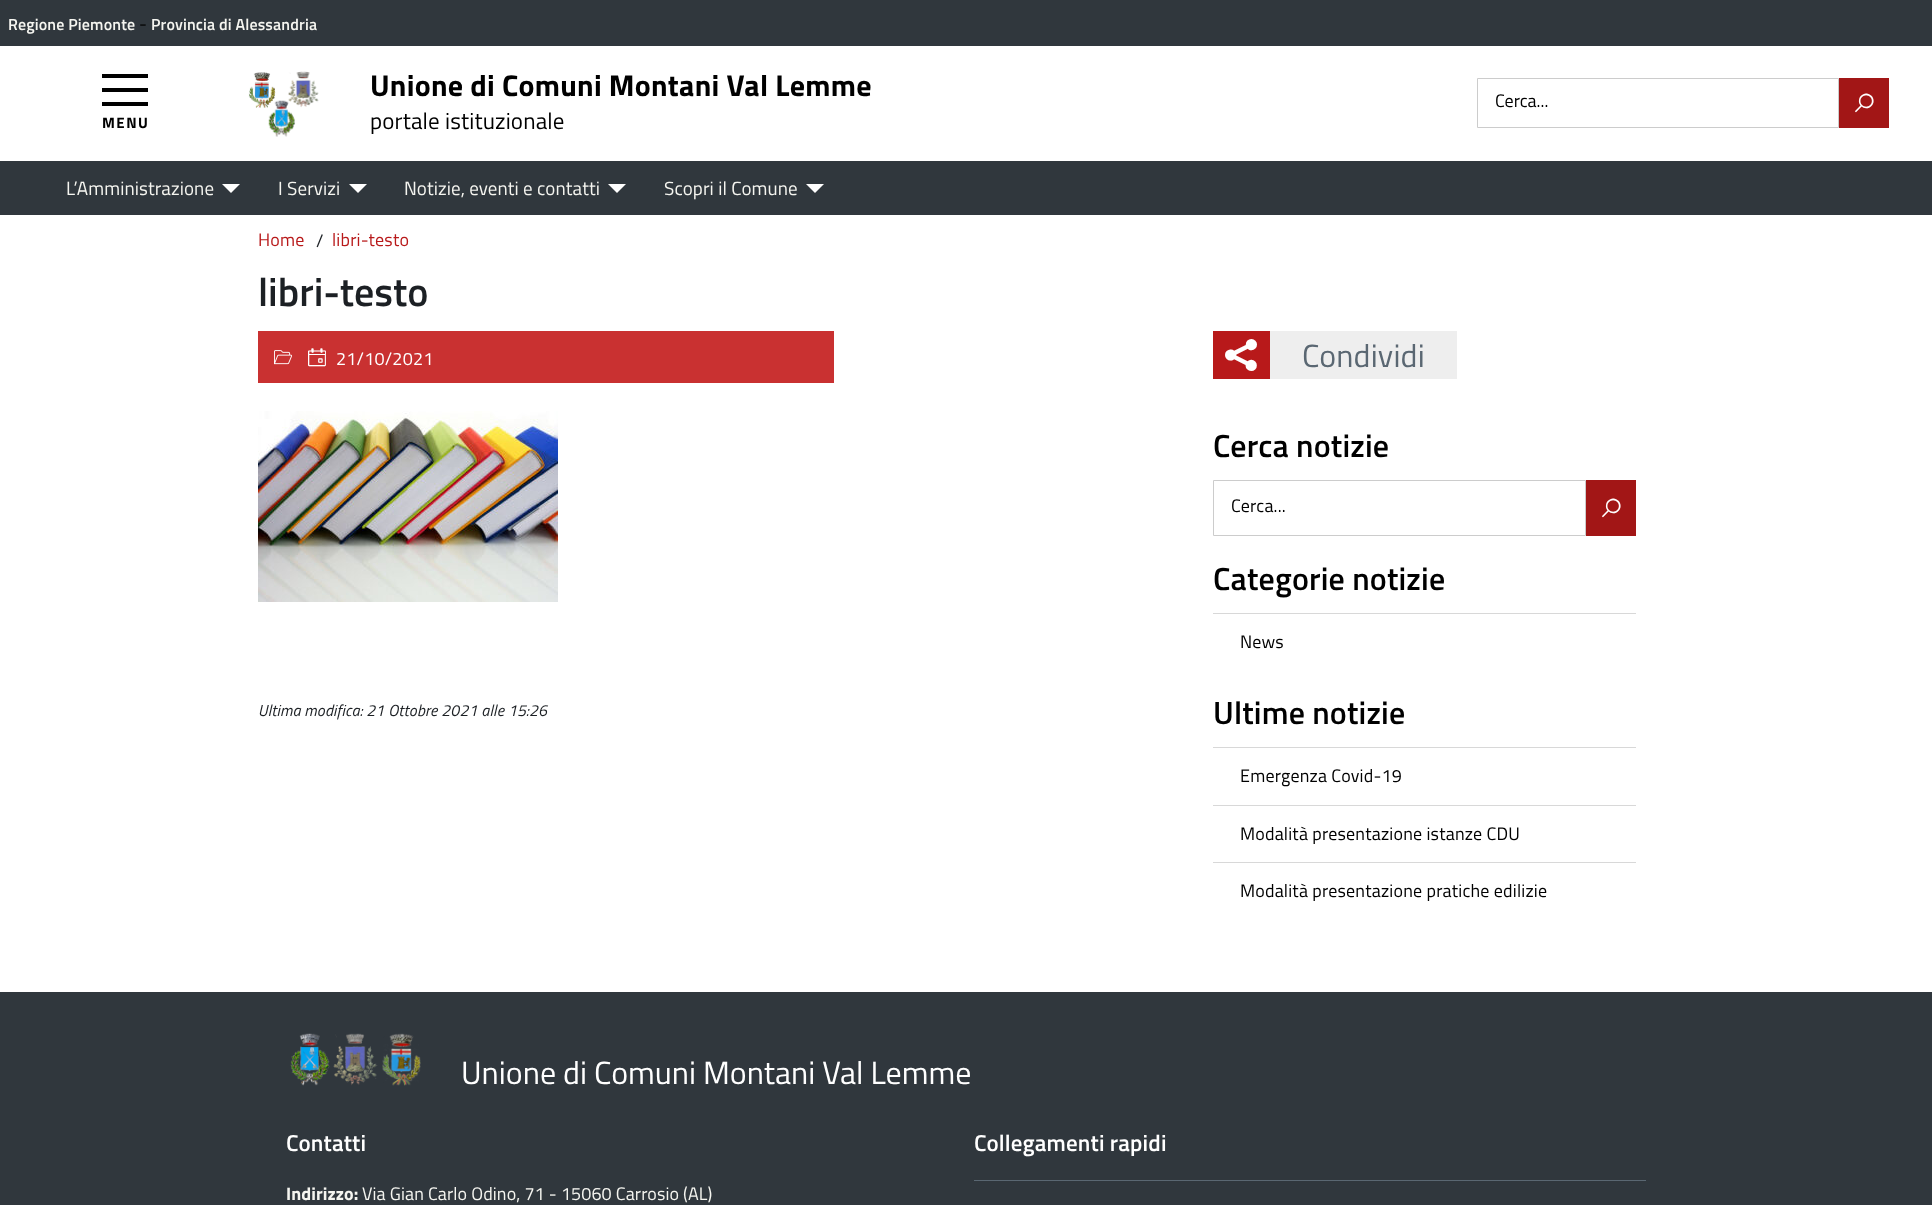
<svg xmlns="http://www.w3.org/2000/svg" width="1932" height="1205">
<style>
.a{font:600 16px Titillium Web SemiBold;letter-spacing:0.15px;fill:#f5f5f0}
.b{font:18px Titillium Web;fill:#000}
.c{font:bold 30px Titillium Web;letter-spacing:0.3px;fill:#000}
.d{font:23px Titillium Web;letter-spacing:0.15px;fill:#000}
.e{font:bold 18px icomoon;fill:#fff}
.f{font:bold 15px Titillium Web;letter-spacing:1.5px;fill:#000}
.g{font:19px Titillium Web;letter-spacing:0.1px;fill:#f5f5f0}
.h{font:18px Titillium Web;letter-spacing:0.2px;fill:#b8191a}
.i{font:18px Titillium Web;fill:#1c2024}
.j{font:600 40px Titillium Web SemiBold;fill:#1c2024}
.k{font:18px icomoon;letter-spacing:0.2px;fill:#fff}
.l{font:18px Titillium Web;letter-spacing:0.2px;fill:#fff}
.m{font:italic 16px Titillium Web;letter-spacing:0.15px;fill:#1c2024}
.n{font:32px icomoon;letter-spacing:0.15px;fill:#fff}
.o{font:32px Titillium Web;letter-spacing:0.15px;fill:#5a6772}
.p{font:600 32px Titillium Web SemiBold;letter-spacing:0.15px;fill:#000}
.q{font:18px Titillium Web;letter-spacing:0.2px;fill:#000}
.r{font:32px Titillium Web;fill:#fff}
.s{font:600 23px Titillium Web SemiBold;letter-spacing:0.15px;fill:#fff}
.t{font:bold 18px Titillium Web;letter-spacing:0.1px;fill:#f5f5f0}
.u{font:18px Titillium Web;letter-spacing:0.1px;fill:#f5f5f0}
</style>
<rect width="100%" height="100%" fill="#fff"/>
<path fill="#30373d" d="M0 0h1932v46H0z"/>
<image href="1.png" x="248" y="71" width="71" height="66"/>
<path fill="none" stroke="#ccc" d="M1477.5 78.5h361v49H1477.5z"/>
<path fill="#a21616" d="M1839 78h50v50H1839z"/>
<path fill="#000" d="M102 88h46v4H102z"/>
<path fill="#000" d="M102 74h46v4H102z"/>
<path fill="#000" d="M102 102h46v4H102z"/>
<path fill="#30373d" d="M0 161h1932v54H0z"/>
<path fill="#fff" d="M222 184h18l-9 9z"/>
<path fill="#fff" d="M349 184h18l-9 9z"/>
<path fill="#fff" d="M608 184h18l-9 9z"/>
<path fill="#fff" d="M806 184h18l-9 9z"/>
<path fill="#c93131" d="M258 331h576v52H258z"/>
<image href="2.png" x="274" y="350" width="18" height="15"/>
<image href="3.png" x="258" y="411" width="300" height="191"/>
<path fill="#eee" d="M1270 331h187v48H1270z"/>
<path fill="#b8191a" d="M1213 331h57v48H1213z"/>
<path fill="none" stroke="#ccc" d="M1213.5 480.5h372v55H1213.5z"/>
<path fill="#a21616" d="M1586 480h50v56H1586z"/>
<path fill="#d8d8d8" d="M1213 613h423v1H1213z"/>
<path fill="#d8d8d8" d="M1213 747h423v1H1213z"/>
<path fill="#d8d8d8" d="M1213 805h423v1H1213z"/>
<path fill="#d8d8d8" d="M1213 862h423v1H1213z"/>
<path fill="#30373d" d="M0 992h1932v213H0z"/>
<image href="4.png" x="290" y="1033" width="131" height="53"/>
<path fill="#5a6772" d="M974 1180h672v1H974z"/>
<text class="a" x="8" y="30">Regione Piemonte</text>
<text class="b" x="139" y="30">-</text>
<text class="a" x="151" y="30">Provincia di Alessandria</text>
<text class="c" x="370" y="96">Unione di Comuni Montani Val Lemme</text>
<text class="d" x="370" y="129">portale istituzionale</text>
<text class="b" x="1495" y="107">Cerca...</text>
<text class="e" x="1855" y="111">🔍</text>
<text class="f" x="102" y="128">MENU</text>
<text class="g" x="66" y="195">L’Amministrazione</text>
<text class="g" x="278" y="195">I Servizi</text>
<text class="g" x="404" y="195">Notizie, eventi e contatti</text>
<text class="g" x="664" y="195">Scopri il Comune</text>
<text class="h" x="258" y="246">Home</text>
<text class="i" x="316" y="247">/</text>
<text class="h" x="332" y="246">libri-testo</text>
<text class="j" x="258" y="306">libri-testo</text>
<text class="k" x="308" y="365">📅</text>
<text class="l" x="336" y="365">21/10/2021</text>
<text class="m" x="258" y="716">Ultima modifica: 21 Ottobre 2021 alle 15:26</text>
<text class="n" x="1225" y="369">📢</text>
<text class="o" x="1302" y="367">Condividi</text>
<text class="p" x="1213" y="457">Cerca notizie</text>
<text class="q" x="1231" y="512">Cerca...</text>
<text class="e" x="1602" y="516">🔍</text>
<text class="p" x="1213" y="590">Categorie notizie</text>
<text class="q" x="1240" y="648">News</text>
<text class="p" x="1213" y="724">Ultime notizie</text>
<text class="q" x="1240" y="782">Emergenza Covid-19</text>
<text class="q" x="1240" y="840">Modalità presentazione istanze CDU</text>
<text class="q" x="1240" y="897">Modalità presentazione pratiche edilizie</text>
<text class="r" x="461" y="1084">Unione di Comuni Montani Val Lemme</text>
<text class="s" x="286" y="1151">Contatti</text>
<text class="t" x="286" y="1200">Indirizzo:</text>
<text class="u" x="362" y="1200">Via Gian Carlo Odino, 71 - 15060 Carrosio (AL)</text>
<text class="s" x="974" y="1151">Collegamenti rapidi</text>
</svg>
